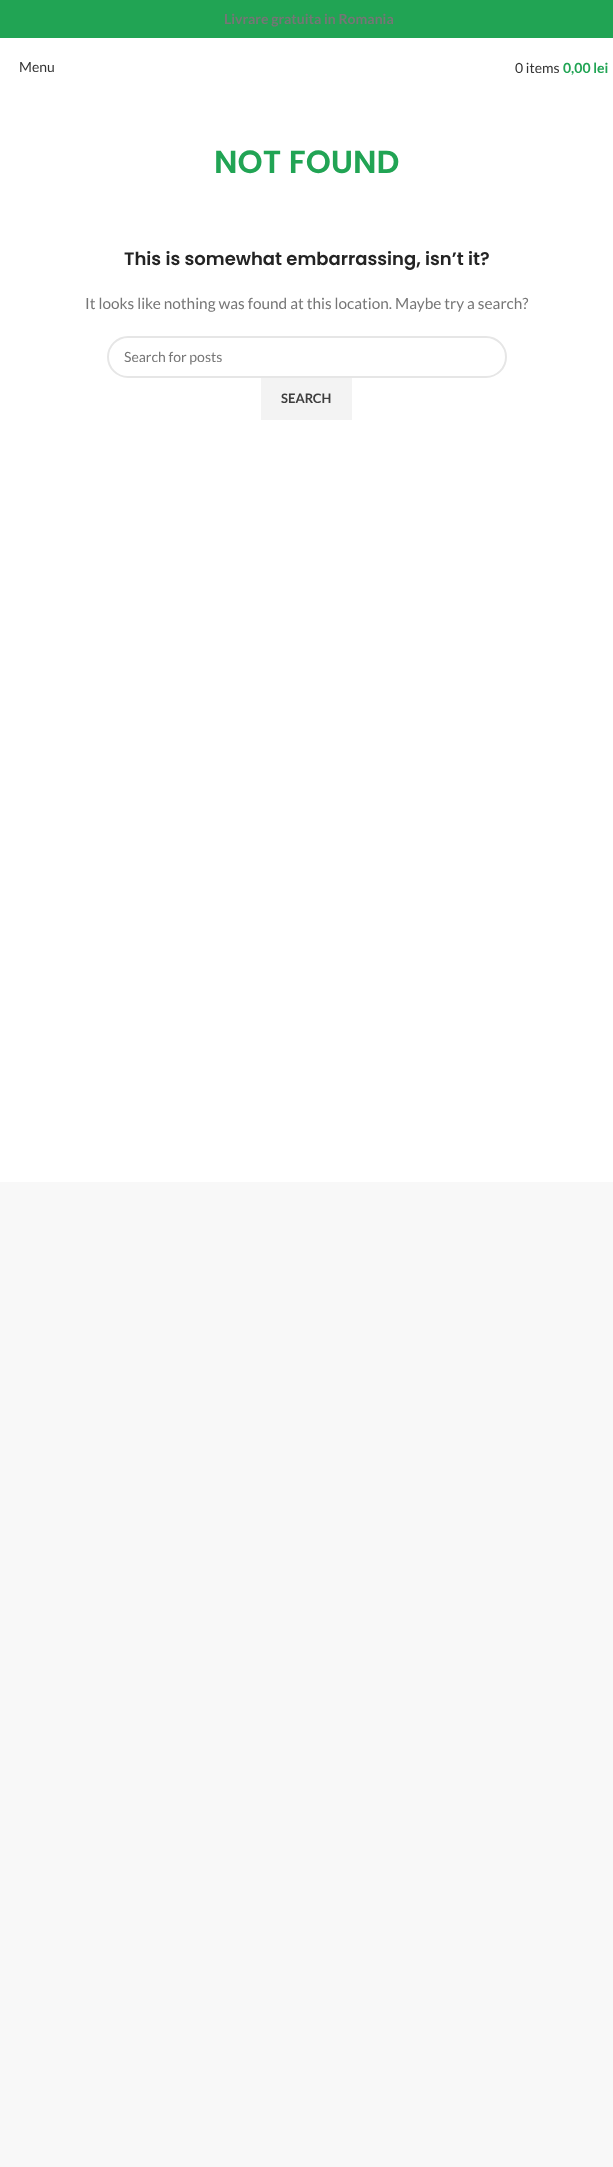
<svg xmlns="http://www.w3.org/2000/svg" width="613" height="2167">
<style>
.a{font:bold 14px Lato;fill:#767676}
.b{font:14px Lato;fill:#333}
.c{font:bold 14px Lato;fill:#21a454}
.d{font:600 32px Poppins;fill:#21a454}
.e{font:600 18px Poppins;fill:#242424}
.f{font:15.4px Lato;fill:#767676}
.g{font:14px Lato;fill:#767676}
.h{font:bold 13px Lato;fill:#3e3e3e}
</style>
<rect width="100%" height="100%" fill="#fff"/>
<path fill="#21a454" d="M0 0h613v38H0z"/>
<rect fill="none" stroke="#e6e6e6" stroke-width="2" x="108" y="337" width="398" height="40" rx="20"/>
<path fill="#f3f3f3" d="M261 378h91v42H261z"/>
<path fill="#f8f8f8" d="M0 1182h613v985H0z"/>
<text class="a" x="224" y="24">Livrare gratuita in Romania</text>
<text class="b" x="19" y="72">Menu</text>
<text class="b" x="515" y="73">0 items</text>
<text class="c" x="563" y="73">0,00 lei</text>
<text class="d" x="214" y="173">NOT FOUND</text>
<text class="e" x="124" y="265">This is somewhat embarrassing, isn’t it?</text>
<text class="f" x="85" y="309">It looks like nothing was found at this location. Maybe try a search?</text>
<text class="g" x="124" y="362">Search for posts</text>
<text class="h" x="281" y="403">SEARCH</text>
</svg>
